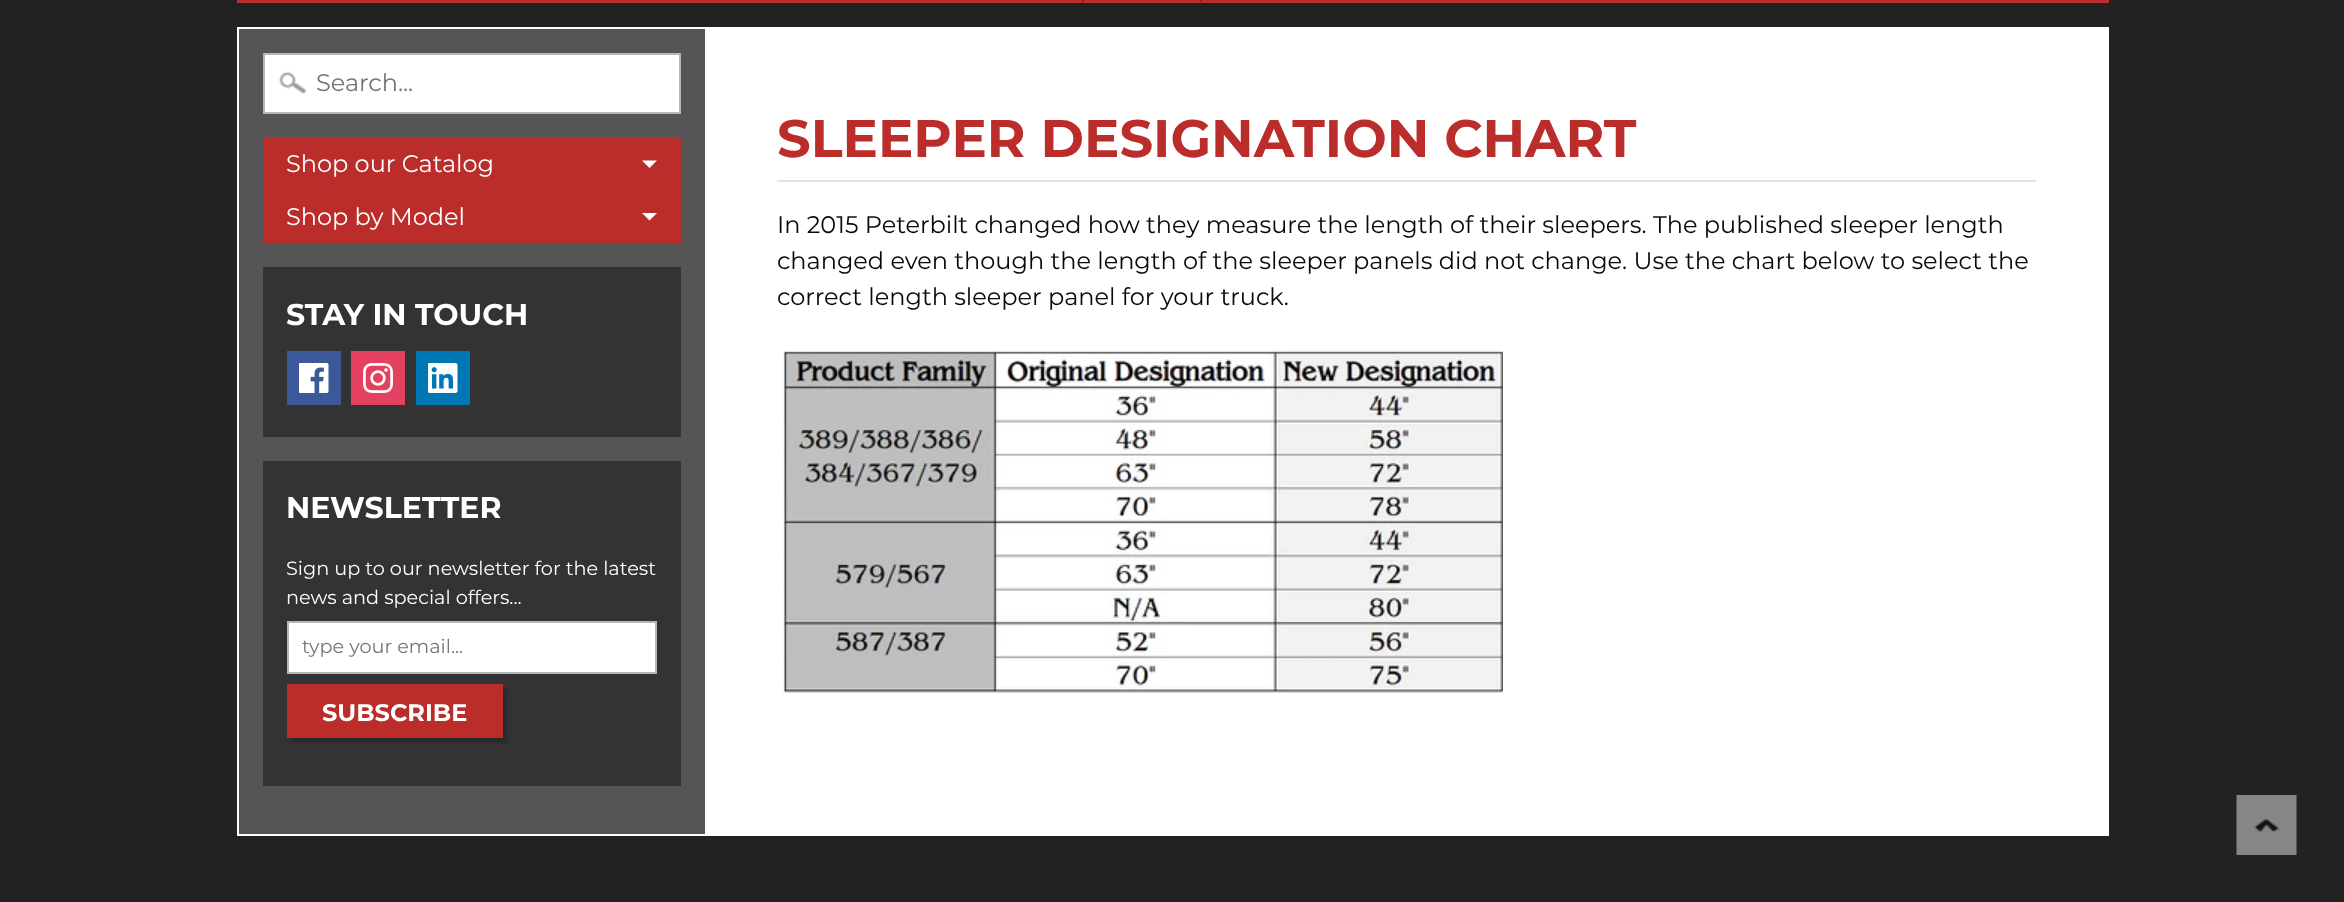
<svg xmlns="http://www.w3.org/2000/svg" width="2344" height="902">
<style>
.a{font:24px Montserrat;fill:#757575}
.b{font:24px Montserrat;fill:#fff}
.c{font:bold 30px Montserrat;fill:#fff}
.d{font:19.25px Montserrat;fill:#fff}
.e{font:19.25px Montserrat;fill:#757575}
.f{font:bold 24px Montserrat;fill:#fff}
.g{font:bold 52.75px Montserrat;fill:#ba2d2a}
.h{font:24px Montserrat;fill:#090909}
</style>
<rect width="100%" height="100%" fill="#222"/>
<path fill="#ba2d2a" d="M237 0h1872v3H237z"/>
<path fill="#991913" d="M1082 0h2v2H1082z"/>
<path fill="#991913" d="M1200 0h2v2H1200z"/>
<path fill="#fff" d="M237 27h1872v809H237z"/>
<path fill="#555" d="M239 29h466v805H239z"/>
<path fill="#fff" d="M265 55h414v57H265z"/>
<image href="1.png" x="279" y="71" width="27" height="23"/>
<path fill="none" stroke="#b2b9bd" stroke-width="2" d="M264 54h416v59H264z"/>
<path fill="#ba2d2a" d="M263 138h418v105H263z"/>
<path fill="#fff" d="M642 160.5h15l-7.5 7.5z"/>
<path fill="#fff" d="M642 213h15l-7.5 7.5z"/>
<path fill="#333" d="M263 267h418v170H263z"/>
<path fill="#3b5998" d="M287 351h54v54H287z"/>
<image href="2.png" x="299" y="363" width="30" height="30"/>
<path fill="#e4405f" d="M351 351h54v54H351z"/>
<image href="3.png" x="363" y="363" width="30" height="30"/>
<path fill="#0077b5" d="M416 351h54v54H416z"/>
<image href="4.png" x="428" y="363" width="30" height="30"/>
<path fill="#333" d="M263 461h418v325H263z"/>
<path fill="#fff" stroke="#b2b9bd" stroke-width="2" d="M288 622h368v51H288z"/>
<path fill="#00000033" filter="blur(1.5px)" d="M291 689h216v54H291z"/>
<path fill="#ba2d2a" d="M287 684h216v54H287z"/>
<path fill="#e3e3e3" d="M777 180h1259v2H777z"/>
<image href="5.png" x="783" y="350" width="720" height="343"/>
<image href="6.png" x="2236" y="795" width="61" height="60"/>
<text class="a" x="316" y="91">Search...</text>
<text class="b" x="286" y="172">Shop our Catalog</text>
<text class="b" x="286" y="225">Shop by Model</text>
<text class="c" x="286" y="325">STAY IN TOUCH</text>
<text class="c" x="286" y="518">NEWSLETTER</text>
<text class="d" x="286" y="575">Sign up to our newsletter for the latest</text>
<text class="d" x="286" y="604">news and special offers...</text>
<text class="e" x="302" y="653">type your email...</text>
<text class="f" x="322" y="721">SUBSCRIBE</text>
<text class="g" x="777" y="157">SLEEPER DESIGNATION CHART</text>
<text class="h" x="777" y="233">In 2015 Peterbilt changed how they measure the length of their sleepers. The published sleeper length</text>
<text class="h" x="777" y="269">changed even though the length of the sleeper panels did not change. Use the chart below to select the</text>
<text class="h" x="777" y="305">correct length sleeper panel for your truck.</text>
</svg>
